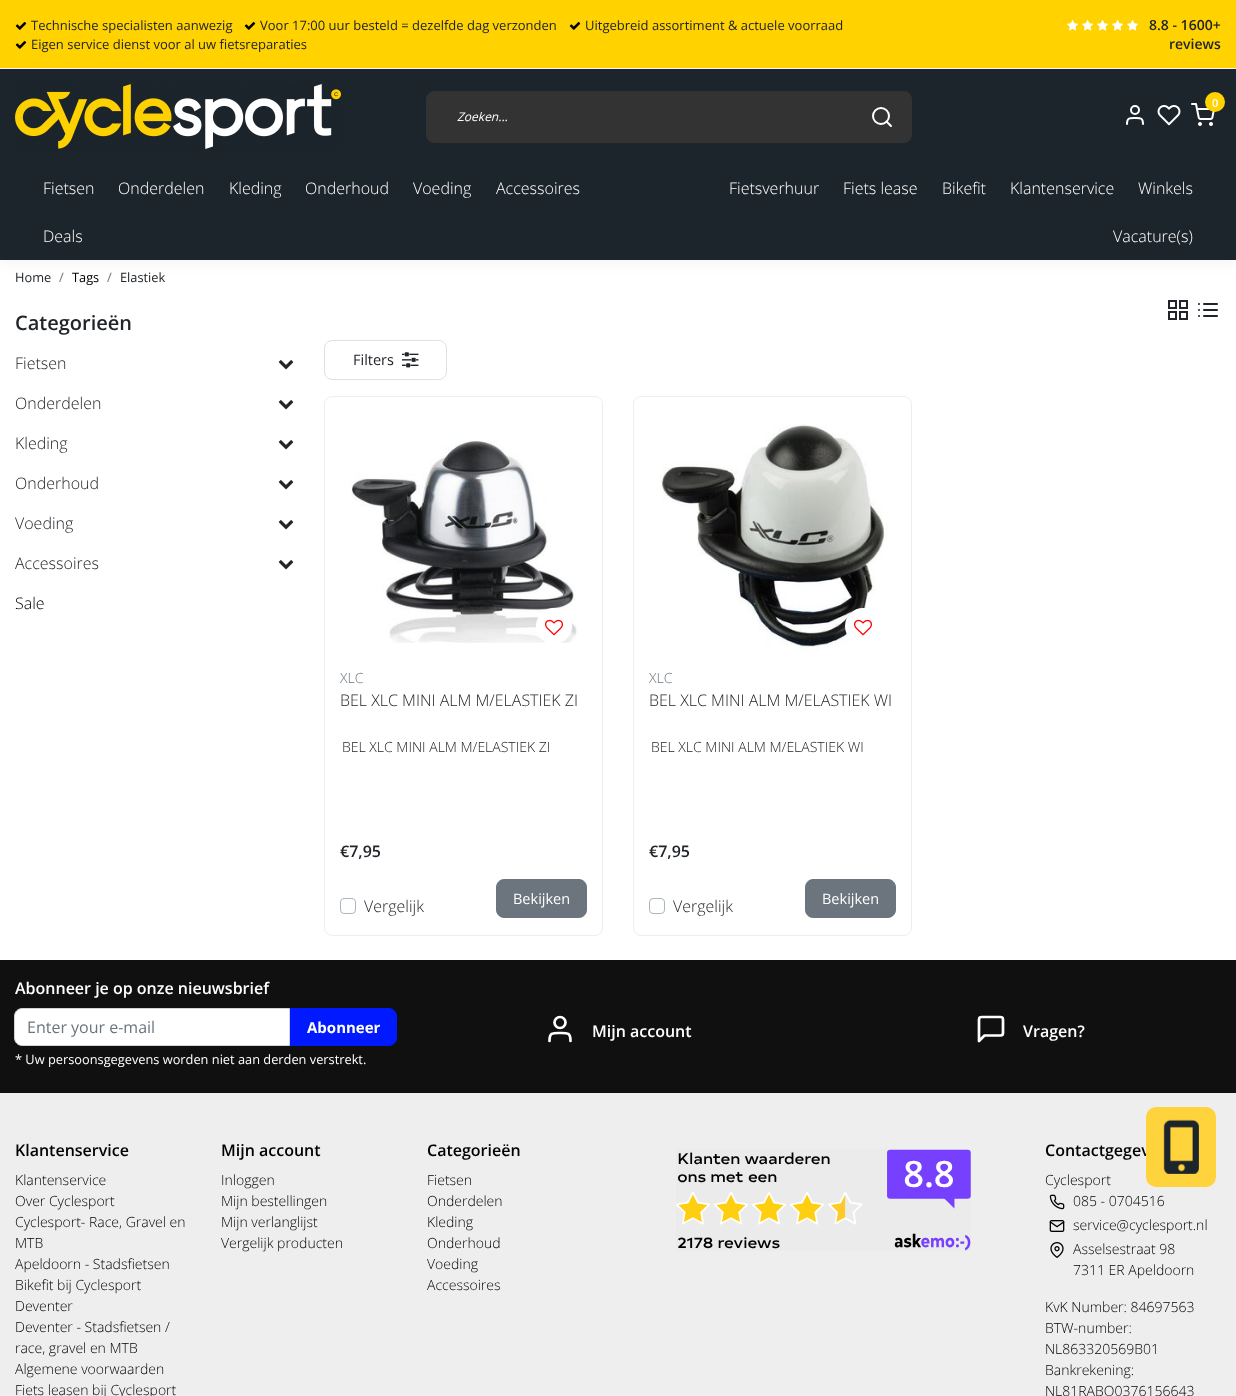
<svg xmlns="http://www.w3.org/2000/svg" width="1236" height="1396">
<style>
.a{font:13px Open Sans;fill:#212529}
.b{font:600 14px Open Sans;fill:#212529}
.c{font:600 11px Open Sans;fill:#fff}
.d{font:italic 12px Open Sans;fill:#fff}
.e{font:300 16px Open Sans;fill:#fff}
.f{font:12.8px Open Sans;fill:#212529}
.g{font:12.8px Open Sans;fill:#6c757d}
.h{font:12.8px Open Sans;fill:#000}
.i{font:600 20px Open Sans;fill:#212529}
.j{font:300 16px Open Sans;fill:#212529}
.k{font:300 16px Open Sans;fill:#000}
.l{font:14.5px Open Sans;fill:#212529}
.m{font:300 14px Open Sans;fill:#6c757d}
.n{font:300 14px Open Sans;fill:#212529}
.o{font:600 16px Open Sans;fill:#212529}
.p{font:14.5px Open Sans;fill:#fff}
.q{font:600 16px Open Sans;fill:#fff}
.r{font:16px Open Sans;fill:#6c757d}
.s{font:bold 15px Open Sans;fill:#fff}
.t{font:12.8px Open Sans;fill:#fff}
.u{font:600 16px Open Sans;fill:#000}
.v{font:300 14px Open Sans;fill:#000}
</style>
<rect width="100%" height="100%" fill="#fff"/>
<path fill="#0000000d" filter="blur(8px)" d="M0 2h1236v260H0z"/>
<path fill="#ffd200" d="M0 0h1236v68H0z"/>
<path fill="#f7f7f7" d="M0 68h1236v1H0z"/>
<image href="1.png" x="15" y="22" width="12" height="8"/>
<image href="1.png" x="244" y="22" width="12" height="8"/>
<image href="1.png" x="569" y="22" width="12" height="8"/>
<image href="1.png" x="15" y="41" width="12" height="8"/>
<image href="2.png" x="1067" y="20" width="12" height="11"/>
<image href="2.png" x="1082" y="20" width="12" height="11"/>
<image href="2.png" x="1097" y="20" width="12" height="11"/>
<image href="2.png" x="1112" y="20" width="12" height="11"/>
<image href="2.png" x="1127" y="20" width="12" height="11"/>
<path fill="#1d252c" d="M0 69h1236v191H0z"/>
<image href="3.png" x="15" y="84" width="326" height="65"/>
<image href="4.png" x="1191" y="103" width="24" height="23"/>
<circle fill="#ffd200" cx="1215" cy="102" r="10"/>
<path fill="none" stroke="#fff" stroke-width="2" stroke-linecap="round" stroke-linejoin="round" d="M1143 124c0-6.5-2.5-6-8-6c-5.5 0-8-.5-8 6"/>
<circle fill="none" stroke="#fff" stroke-width="2" cx="1135" cy="110" r="4"/>
<image href="5.png" x="1157" y="105" width="24" height="21"/>
<rect fill="#333" stroke="#333" x="426.5" y="91.5" width="485" height="51" rx="7.5"/>
<circle fill="none" stroke="#fff" stroke-width="2" cx="881" cy="116" r="8"/>
<path fill="none" stroke="#fff" stroke-width="2" stroke-linecap="round" stroke-linejoin="round" d="M891 126l-4.5-4.5"/>
<image href="6.png" x="278" y="360" width="16" height="10"/>
<image href="6.png" x="278" y="400" width="16" height="10"/>
<image href="6.png" x="278" y="440" width="16" height="10"/>
<image href="6.png" x="278" y="480" width="16" height="10"/>
<image href="6.png" x="278" y="520" width="16" height="10"/>
<image href="6.png" x="278" y="560" width="16" height="10"/>
<path fill="none" stroke="#212529" stroke-width="2" d="M1169 301h7v7H1169z"/>
<path fill="none" stroke="#212529" stroke-width="2" d="M1180 301h7v7H1180z"/>
<path fill="none" stroke="#212529" stroke-width="2" d="M1180 312h7v7H1180z"/>
<path fill="none" stroke="#212529" stroke-width="2" d="M1169 312h7v7H1169z"/>
<image href="7.png" x="1198" y="303" width="20" height="14"/>
<rect fill="none" stroke="#dee2e6" x="324.5" y="340.5" width="122" height="39" rx="7.5"/>
<image href="8.png" x="402" y="352" width="17" height="16"/>
<rect fill="none" stroke="#eee" x="324.5" y="396.5" width="278" height="539" rx="7.5"/>
<image href="9.png" x="350" y="440" width="227" height="203"/>
<circle fill="#fff" cx="554" cy="626" r="18"/>
<image href="10.png" x="545" y="619" width="18" height="17"/>
<rect fill="none" stroke="#adb5bd" x="340.5" y="898.5" width="15" height="15" rx="3.5"/>
<rect fill="#6c757d" stroke="#6c757d" x="496.5" y="879.5" width="90" height="38" rx="7.5"/>
<rect fill="none" stroke="#eee" x="633.5" y="396.5" width="278" height="539" rx="7.5"/>
<image href="11.png" x="660" y="424" width="228" height="228"/>
<circle fill="#fff" cx="863" cy="626" r="18"/>
<image href="10.png" x="854" y="619" width="18" height="17"/>
<rect fill="none" stroke="#adb5bd" x="649.5" y="898.5" width="15" height="15" rx="3.5"/>
<rect fill="#6c757d" stroke="#6c757d" x="805.5" y="879.5" width="90" height="38" rx="7.5"/>
<path fill="#101010" d="M0 960h1236v133H0z"/>
<path fill="#fff" stroke="#ced4da" d="M22 1008.5h267.5v37h-267.5c-4 0-7.5-3.5-7.5-7.5v-22c0-4 3.5-7.5 7.5-7.5z"/>
<path fill="#0019ff" stroke="#0019ff" d="M290.5 1008.5h98.5c4 0 7.5 3.5 7.5 7.5v22c0 4-3.5 7.5-7.5 7.5h-98.5z"/>
<path fill="none" stroke="#fff" stroke-width="2.7" stroke-linecap="round" stroke-linejoin="round" d="M570.5 1041c0-8.5-3-8-10.5-8c-7.5 0-10.5-.5-10.5 8"/>
<circle fill="none" stroke="#fff" stroke-width="2.7" cx="560" cy="1022.5" r="5.5"/>
<path fill="none" stroke="#fff" stroke-width="2.7" stroke-linecap="round" stroke-linejoin="round" d="M1003 1033c0 1.5-1 2.5-2.5 2.5h-16l-5.5 5.5v-21.5c0-1.5 1-2.5 2.5-2.5h19c1.5 0 2.5 1 2.5 2.5z"/>
<path fill="#eee" d="M0 1093h1236v303H0z"/>
<image href="12.png" x="676" y="1149" width="295" height="102"/>
<image href="13.png" x="1049" y="1194" width="16" height="16"/>
<image href="14.png" x="1049" y="1220" width="16" height="12"/>
<image href="15.png" x="1050" y="1242" width="14" height="16"/>
<text class="a" x="31" y="30">Technische specialisten aanwezig</text>
<text class="a" x="260" y="30">Voor 17:00 uur besteld = dezelfde dag verzonden</text>
<text class="a" x="585" y="30">Uitgebreid assortiment &amp; actuele voorraad</text>
<text class="a" x="31" y="49">Eigen service dienst voor al uw fietsreparaties</text>
<text class="b" x="1149" y="30">8.8 - 1600+</text>
<text class="b" x="1169" y="49">reviews</text>
<text class="c" x="1212" y="107">0</text>
<text class="d" x="457" y="121">Zoeken...</text>
<text class="e" x="43" y="194">Fietsen</text>
<text class="e" x="118" y="194">Onderdelen</text>
<text class="e" x="229" y="194">Kleding</text>
<text class="e" x="305" y="194">Onderhoud</text>
<text class="e" x="413" y="194">Voeding</text>
<text class="e" x="496" y="194">Accessoires</text>
<text class="e" x="43" y="242">Deals</text>
<text class="e" x="729" y="194">Fietsverhuur</text>
<text class="e" x="843" y="194">Fiets lease</text>
<text class="e" x="942" y="194">Bikefit</text>
<text class="e" x="1010" y="194">Klantenservice</text>
<text class="e" x="1138" y="194">Winkels</text>
<text class="e" x="1113" y="242">Vacature(s)</text>
<text class="f" x="15" y="282">Home</text>
<text class="g" x="59" y="282">/</text>
<text class="h" x="72" y="282">Tags</text>
<text class="g" x="107" y="282">/</text>
<text class="f" x="120" y="282">Elastiek</text>
<text class="i" x="15" y="330">Categorieën</text>
<text class="j" x="15" y="369">Fietsen</text>
<text class="j" x="15" y="409">Onderdelen</text>
<text class="j" x="15" y="449">Kleding</text>
<text class="j" x="15" y="489">Onderhoud</text>
<text class="j" x="15" y="529">Voeding</text>
<text class="j" x="15" y="569">Accessoires</text>
<text class="k" x="15" y="609">Sale</text>
<text class="l" x="353" y="365">Filters</text>
<text class="m" x="340" y="683">XLC</text>
<text class="j" x="340" y="706">BEL XLC MINI ALM M/ELASTIEK ZI</text>
<text class="n" x="342" y="752">BEL XLC MINI ALM M/ELASTIEK ZI</text>
<text class="o" x="340" y="857">€7,95</text>
<text class="j" x="364" y="912">Vergelijk</text>
<text class="p" x="513" y="904">Bekijken</text>
<text class="m" x="649" y="683">XLC</text>
<text class="j" x="649" y="706">BEL XLC MINI ALM M/ELASTIEK WI</text>
<text class="n" x="651" y="752">BEL XLC MINI ALM M/ELASTIEK WI</text>
<text class="o" x="649" y="857">€7,95</text>
<text class="j" x="673" y="912">Vergelijk</text>
<text class="p" x="822" y="904">Bekijken</text>
<text class="q" x="15" y="994">Abonneer je op onze nieuwsbrief</text>
<text class="r" x="27" y="1033">Enter your e-mail</text>
<text class="s" x="307" y="1033">Abonneer</text>
<text class="t" x="15" y="1064">* Uw persoonsgegevens worden niet aan derden verstrekt.</text>
<text class="q" x="592" y="1037">Mijn account</text>
<text class="q" x="1023" y="1037">Vragen?</text>
<text class="u" x="15" y="1156">Klantenservice</text>
<text class="v" x="15" y="1185">Klantenservice</text>
<text class="v" x="15" y="1206">Over Cyclesport</text>
<text class="v" x="15" y="1227">Cyclesport- Race, Gravel en</text>
<text class="v" x="15" y="1248">MTB</text>
<text class="v" x="15" y="1269">Apeldoorn - Stadsfietsen</text>
<text class="v" x="15" y="1290">Bikefit bij Cyclesport</text>
<text class="v" x="15" y="1311">Deventer</text>
<text class="v" x="15" y="1332">Deventer - Stadsfietsen /</text>
<text class="v" x="15" y="1353">race, gravel en MTB</text>
<text class="v" x="15" y="1374">Algemene voorwaarden</text>
<text class="v" x="15" y="1395">Fiets leasen bij Cyclesport</text>
<text class="u" x="221" y="1156">Mijn account</text>
<text class="v" x="221" y="1185">Inloggen</text>
<text class="v" x="221" y="1206">Mijn bestellingen</text>
<text class="v" x="221" y="1227">Mijn verlanglijst</text>
<text class="v" x="221" y="1248">Vergelijk producten</text>
<text class="u" x="427" y="1156">Categorieën</text>
<text class="v" x="427" y="1185">Fietsen</text>
<text class="v" x="427" y="1206">Onderdelen</text>
<text class="v" x="427" y="1227">Kleding</text>
<text class="v" x="427" y="1248">Onderhoud</text>
<text class="v" x="427" y="1269">Voeding</text>
<text class="v" x="427" y="1290">Accessoires</text>
<text class="u" x="1045" y="1156">Contactgegev</text>
<text class="v" x="1045" y="1185">Cyclesport</text>
<text class="v" x="1073" y="1206">085 - 0704516</text>
<text class="v" x="1073" y="1230">service@cyclesport.nl</text>
<text class="v" x="1073" y="1254">Asselsestraat 98</text>
<text class="v" x="1073" y="1275">7311 ER Apeldoorn</text>
<text class="v" x="1045" y="1312">KvK Number: 84697563</text>
<text class="v" x="1045" y="1333">BTW-number:</text>
<text class="v" x="1045" y="1354">NL863320569B01</text>
<text class="v" x="1045" y="1375">Bankrekening:</text>
<text class="v" x="1045" y="1396">NL81RABO0376156643</text>
<rect fill="#fed33c" x="1146" y="1107" width="70" height="80" rx="10"/>
<image href="16.png" x="1163" y="1119" width="36" height="55"/>
</svg>
